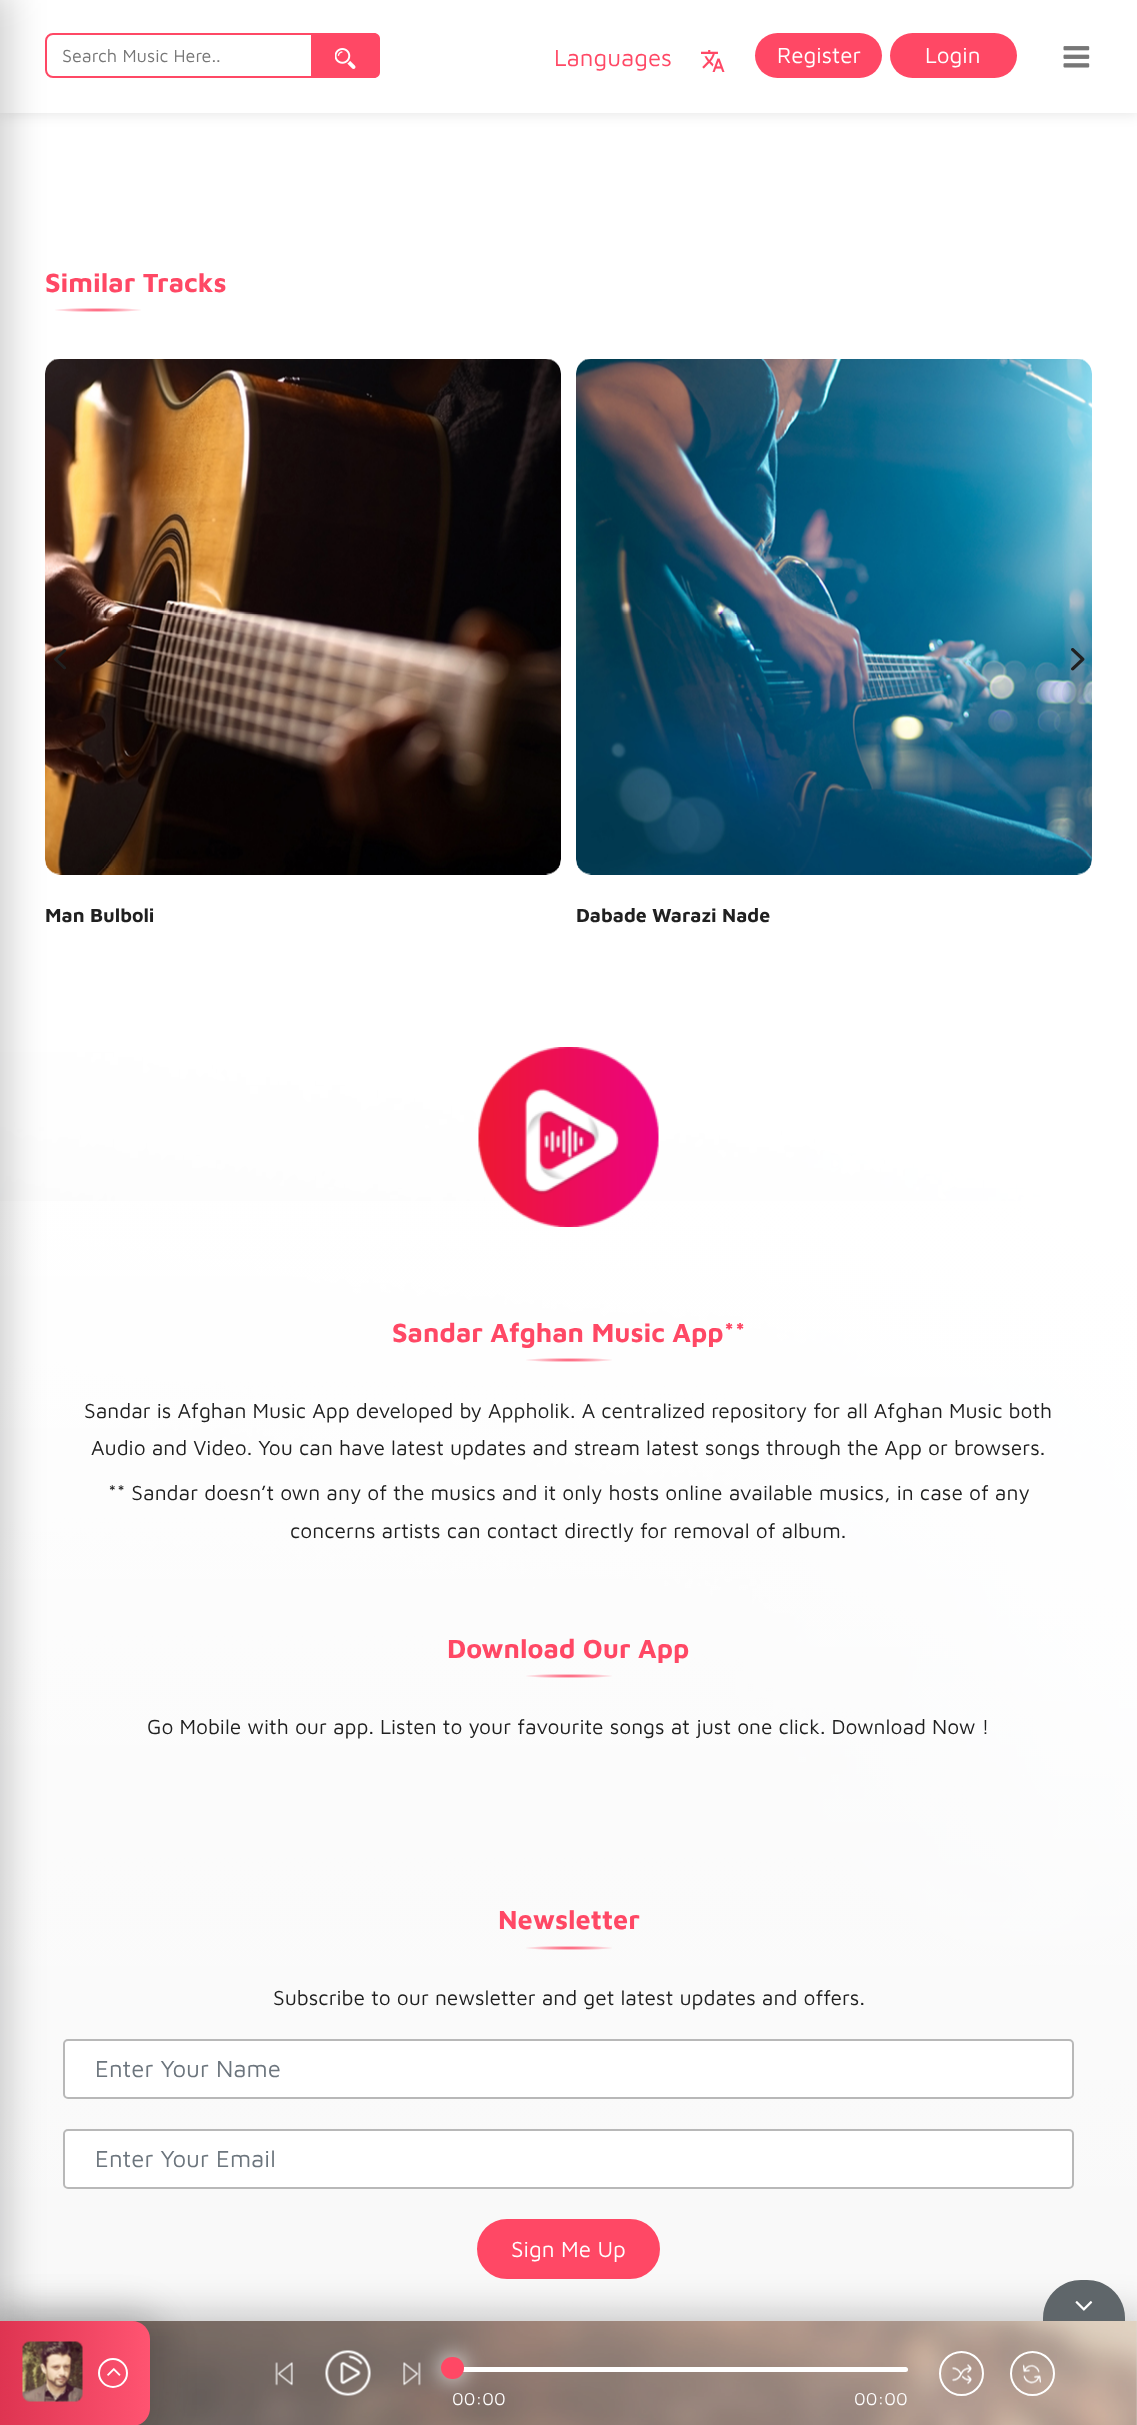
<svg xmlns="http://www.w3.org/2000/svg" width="1137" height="2425">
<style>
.a{font:18px Maven Pro;fill:#777}
.b{font:24px Maven Pro;fill:#ff4865}
.c{font:22.5px Maven Pro;fill:#fff}
.d{font:bold 27px Maven Pro;fill:#ff4865}
.e{font:bold 19.5px Maven Pro;fill:#202020}
.f{font:21px Maven Pro;fill:#202020}
.g{font:24px Maven Pro;fill:#6c757d}
.h{font:18px Maven Pro;fill:#fff}
</style>
<defs>
<radialGradient id="g1" gradientUnits="userSpaceOnUse" cx="0" cy="0" r="1" gradientTransform="matrix(75 0 0 3.8 98 310)"><stop offset="0" stop-color="#ff4865"/><stop offset="0.6" stop-color="#fff"/></radialGradient>
<linearGradient id="g2" gradientUnits="userSpaceOnUse" x1="568" y1="972" x2="569" y2="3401"><stop offset="0" stop-color="#fff"/><stop offset="1" stop-color="#fff" stop-opacity="0"/></linearGradient>
<radialGradient id="g3" gradientUnits="userSpaceOnUse" cx="0" cy="0" r="1" gradientTransform="matrix(75 0 0 3.8 569 1360)"><stop offset="0" stop-color="#ff4865"/><stop offset="0.6" stop-color="#fefefe"/></radialGradient>
<radialGradient id="g4" gradientUnits="userSpaceOnUse" cx="0" cy="0" r="1" gradientTransform="matrix(75 0 0 3.8 569 1676)"><stop offset="0" stop-color="#ff4865"/><stop offset="0.6" stop-color="#fcfcfc"/></radialGradient>
<radialGradient id="g5" gradientUnits="userSpaceOnUse" cx="0" cy="0" r="1" gradientTransform="matrix(75 0 0 3.8 569 1948)"><stop offset="0" stop-color="#ff4865"/><stop offset="0.6" stop-color="#fafafa"/></radialGradient>
<linearGradient id="g6" gradientUnits="userSpaceOnUse" x1="150" y1="2373" x2="0" y2="2373"><stop offset="0" stop-color="#ed3fb3"/><stop offset="0" stop-color="#3bc8e7"/><stop offset="0" stop-color="#ff5471"/><stop offset="1" stop-color="#de3451"/></linearGradient>
</defs>
<rect width="100%" height="100%" fill="#fff"/>
<path fill="#0404041a" filter="blur(7px)" d="M-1 -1h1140v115H-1z"/>
<path fill="#fff" d="M0 0h1137v113H0z"/>
<rect fill="none" stroke="#ff4865" stroke-width="2" x="46" y="34" width="333" height="43" rx="7"/>
<path fill="url(#g1)" d="M55 308h86v4H55z"/>
<image href="6.png" x="45" y="359" width="516" height="516"/>
<image href="4.png" x="54" y="649" width="13" height="21"/>
<image href="8.png" x="0" y="1052" width="1137" height="1373"/>
<path fill="url(#g2)" d="M0 1201h1137v1224H0z"/>
<rect fill="#fff" stroke="#b8b8b8" stroke-width="2" x="64" y="2040" width="1009" height="58" rx="4"/>
<rect fill="#fff" stroke="#b8b8b8" stroke-width="2" x="64" y="2130" width="1009" height="58" rx="4"/>
<path fill="#04040433" filter="blur(18px)" d="M-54 -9h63v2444H-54z"/>
<image href="1.png" x="1063" y="46" width="27" height="22"/>
<path fill="#ff4865" d="M311 33h63c3.5 0 6 2.5 6 6v33c0 3.5-2.5 6-6 6h-63z"/>
<image href="2.png" x="335" y="48" width="21" height="21"/>
<image href="3.png" x="701" y="50" width="24" height="22"/>
<rect fill="#ff4865" x="755" y="33" width="127" height="45" rx="22.5"/>
<rect fill="#ff4865" x="890" y="33" width="127" height="45" rx="22.5"/>
<image href="7.png" x="576" y="359" width="516" height="516"/>
<image href="5.png" x="1071" y="648" width="14" height="23"/>
<image href="9.png" x="478" y="1047" width="181" height="180"/>
<path fill="url(#g3)" d="M526 1358h86v4H526z"/>
<path fill="url(#g4)" d="M526 1674h86v4H526z"/>
<path fill="url(#g5)" d="M526 1946h86v4H526z"/>
<rect fill="#ff4865" stroke="#ff4865" stroke-width="2" x="478" y="2220" width="181" height="58" rx="29"/>
<path fill="#04040433" filter="blur(18px)" d="M-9 2312h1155v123H-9z"/>
<image href="10.png" x="132" y="2321" width="1005" height="104"/>
<path fill="#5f666a" d="M1081 2280h6c21 0 38 17 38 38v3h-82v-3c0-21 17-38 38-38z"/>
<image href="11.png" x="1075" y="2301" width="18" height="10"/>
<path fill="#dbdbdb4d" d="M132 2321h1005v104H132z"/>
<rect fill="#04040433" filter="blur(18px)" x="-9" y="2312" width="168" height="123" rx="27"/>
<path fill="url(#g6)" d="M0 2321h132c10 0 18 8 18 18v69c0 10-8 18-18 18h-132z"/>
<image href="12.png" x="22" y="2341" width="61" height="61"/>
<circle fill="none" stroke="#fff" stroke-width="2" cx="113" cy="2373" r="14"/>
<image href="13.png" x="107" y="2368" width="14" height="8"/>
<image href="14.png" x="275" y="2362" width="18" height="24"/>
<image href="15.png" x="325" y="2350" width="46" height="46"/>
<image href="16.png" x="403" y="2362" width="18" height="24"/>
<image href="17.png" x="952" y="2364" width="20" height="21"/>
<circle fill="none" stroke="#fff" stroke-width="2" cx="961.5" cy="2373.5" r="21.5"/>
<image href="18.png" x="1023" y="2364" width="18" height="20"/>
<circle fill="none" stroke="#fff" stroke-width="2" cx="1032.5" cy="2373.5" r="21.5"/>
<rect fill="#fff" x="453" y="2367" width="455" height="5" rx="2.5"/>
<rect fill="#fff" filter="blur(11px)" x="441" y="2357" width="23" height="22" rx="11"/>
<rect fill="#ff4865" x="441" y="2357" width="23" height="22" rx="11"/>
<text class="a" x="62" y="62">Search Music Here..</text>
<text class="b" x="554" y="66">Languages</text>
<text class="c" x="777" y="63">Register</text>
<text class="c" x="925" y="63">Login</text>
<text class="d" x="45" y="292">Similar Tracks</text>
<text class="e" x="45" y="922">Man Bulboli</text>
<text class="e" x="576" y="922">Dabade Warazi Nade</text>
<text class="d" x="392" y="1342">Sandar Afghan Music App**</text>
<text class="f" x="84" y="1418">Sandar is Afghan Music App developed by Appholik. A centralized repository for all Afghan Music both</text>
<text class="f" x="91" y="1455">Audio and Video. You can have latest updates and stream latest songs through the App or browsers.</text>
<text class="f" x="108" y="1500">** Sandar doesn’t own any of the musics and it only hosts online available musics, in case of any</text>
<text class="f" x="290" y="1538">concerns artists can contact directly for removal of album.</text>
<text class="d" x="447" y="1658">Download Our App</text>
<text class="f" x="147" y="1734">Go Mobile with our app. Listen to your favourite songs at just one click. Download Now !</text>
<text class="d" x="498" y="1929">Newsletter</text>
<text class="f" x="273" y="2005">Subscribe to our newsletter and get latest updates and offers.</text>
<text class="g" x="95" y="2077">Enter Your Name</text>
<text class="g" x="95" y="2167">Enter Your Email</text>
<text class="c" x="511" y="2257">Sign Me Up</text>
<text class="h" x="452" y="2405">00:00</text>
<text class="h" x="854" y="2405">00:00</text>
</svg>
